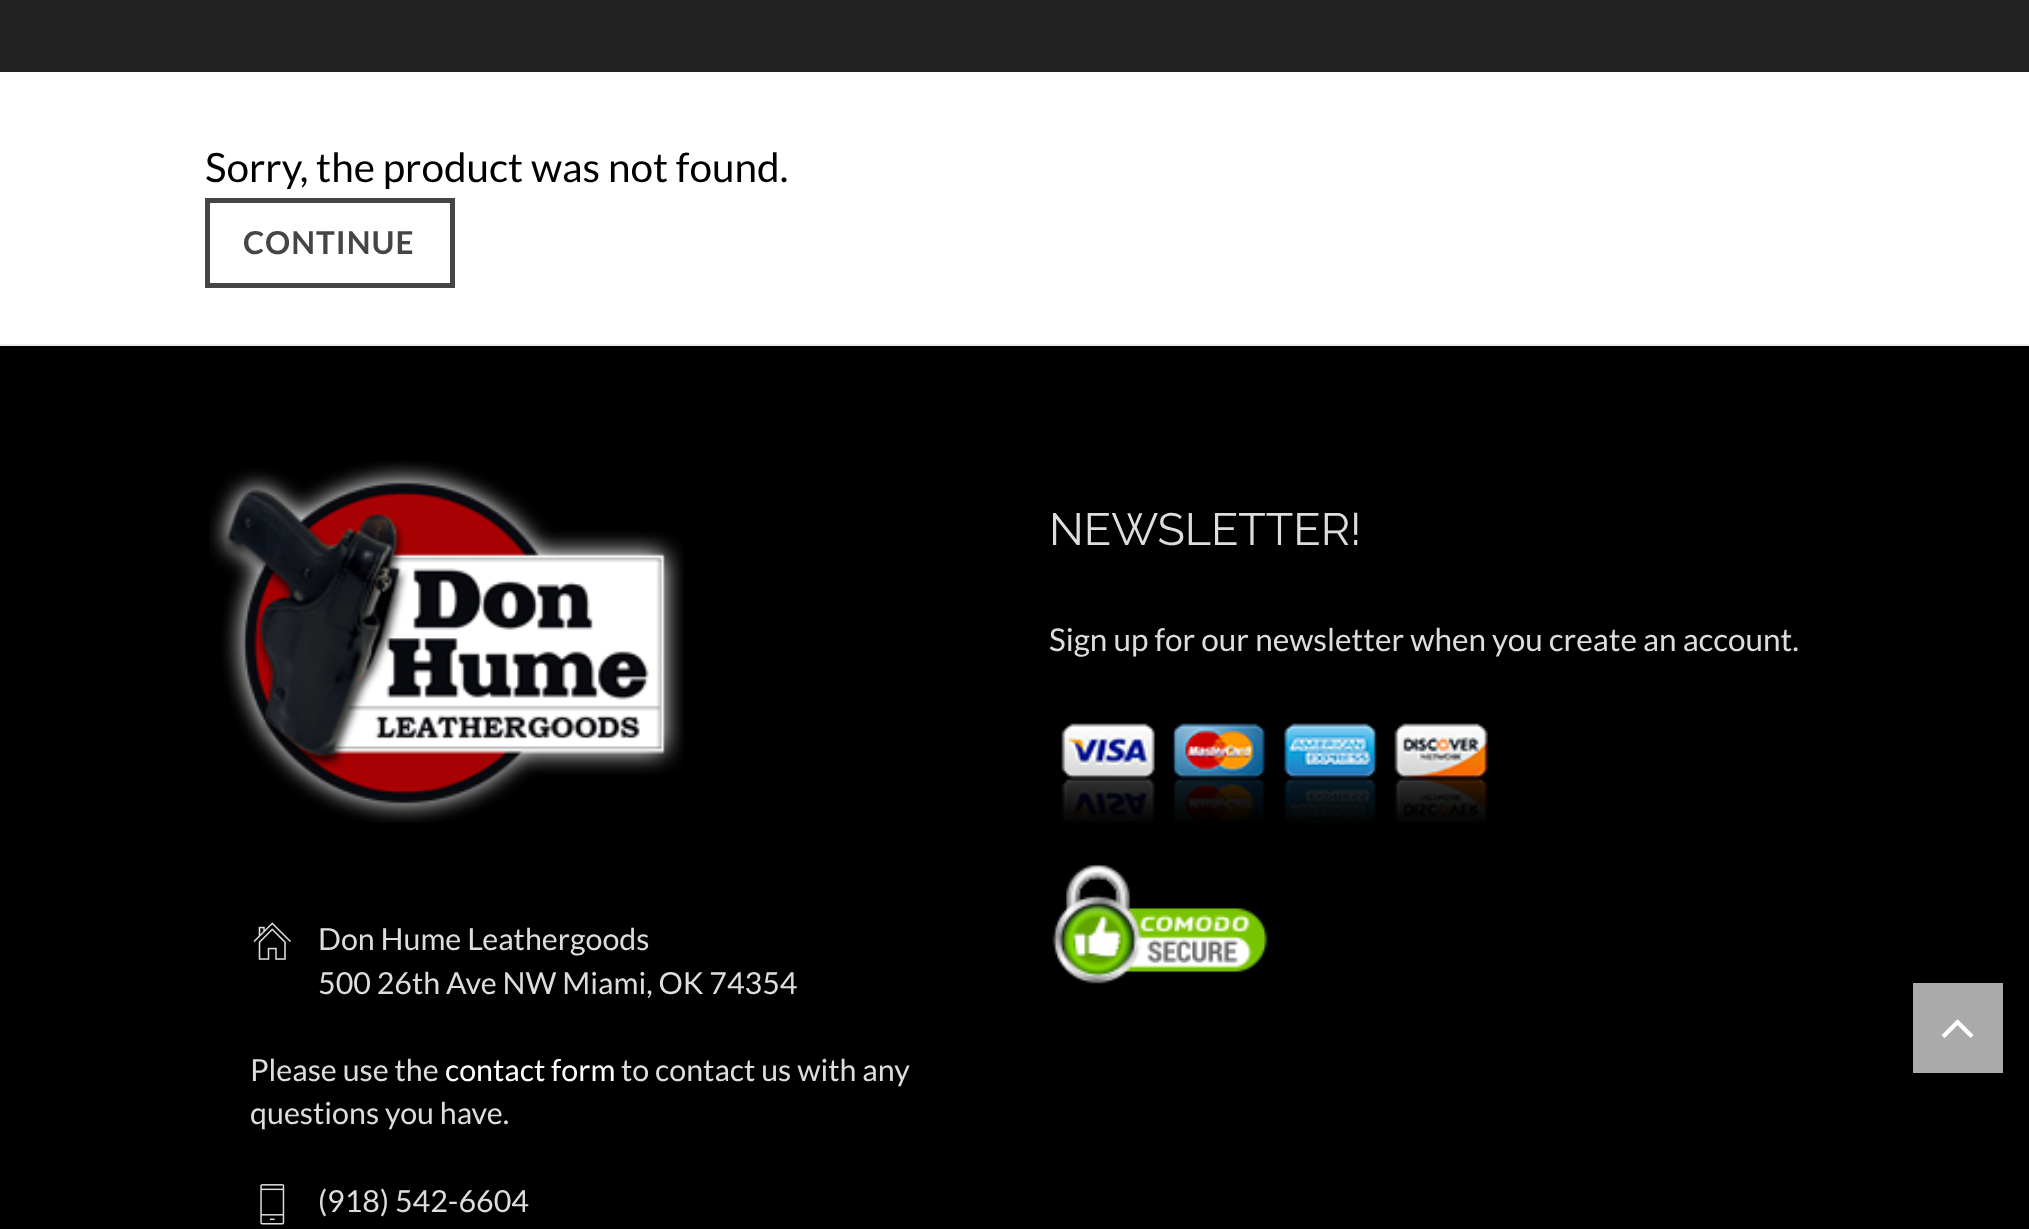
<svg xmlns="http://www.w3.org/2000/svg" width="2029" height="1229">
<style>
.a{font:40.5px Lato;fill:#000}
.b{font:bold 31.5px Lato;letter-spacing:1px;fill:#454545}
.c{font:45px Raleway;fill:#ddd}
.d{font:31.5px Lato;fill:#ddd}
.e{font:30.4px Lato;fill:#ddd}
.f{font:30.4px Lato;fill:#fff}
</style>
<rect width="100%" height="100%" fill="#fff"/>
<path fill="#222" d="M0 0h2029v72H0z"/>
<path fill="none" stroke="#454545" stroke-width="5" d="M207.5 200.5h245v85H207.5z"/>
<path fill="#000" d="M0 346h2029v883H0z"/>
<path fill="#ececec" d="M0 344h2029v2H0z"/>
<image href="1.png" x="1061" y="723" width="427" height="99"/>
<image href="2.png" x="1052" y="863" width="216" height="121"/>
<image href="3.png" x="209" y="461" width="475" height="362"/>
<image href="4.png" x="253" y="922" width="38" height="38"/>
<image href="5.png" x="260" y="1184" width="25" height="41"/>
<path fill="#aaa" d="M1913 983h90v90H1913z"/>
<image href="6.png" x="1942" y="1019" width="32" height="19"/>
<text class="a" x="205" y="182">Sorry, the product was not found.</text>
<text class="b" x="243" y="254">CONTINUE</text>
<text class="c" x="1049" y="545">NEWSLETTER!</text>
<text class="d" x="1049" y="651">Sign up for our newsletter when you create an account.</text>
<text class="e" x="318" y="950">Don Hume Leathergoods</text>
<text class="e" x="318" y="994">500 26th Ave NW Miami, OK 74354</text>
<text class="e" x="250" y="1081">Please use the</text>
<text class="f" x="445" y="1081">contact form</text>
<text class="e" x="621" y="1081">to contact us with any</text>
<text class="e" x="250" y="1124">questions you have.</text>
<text class="e" x="318" y="1212">(918) 542-6604</text>
</svg>
